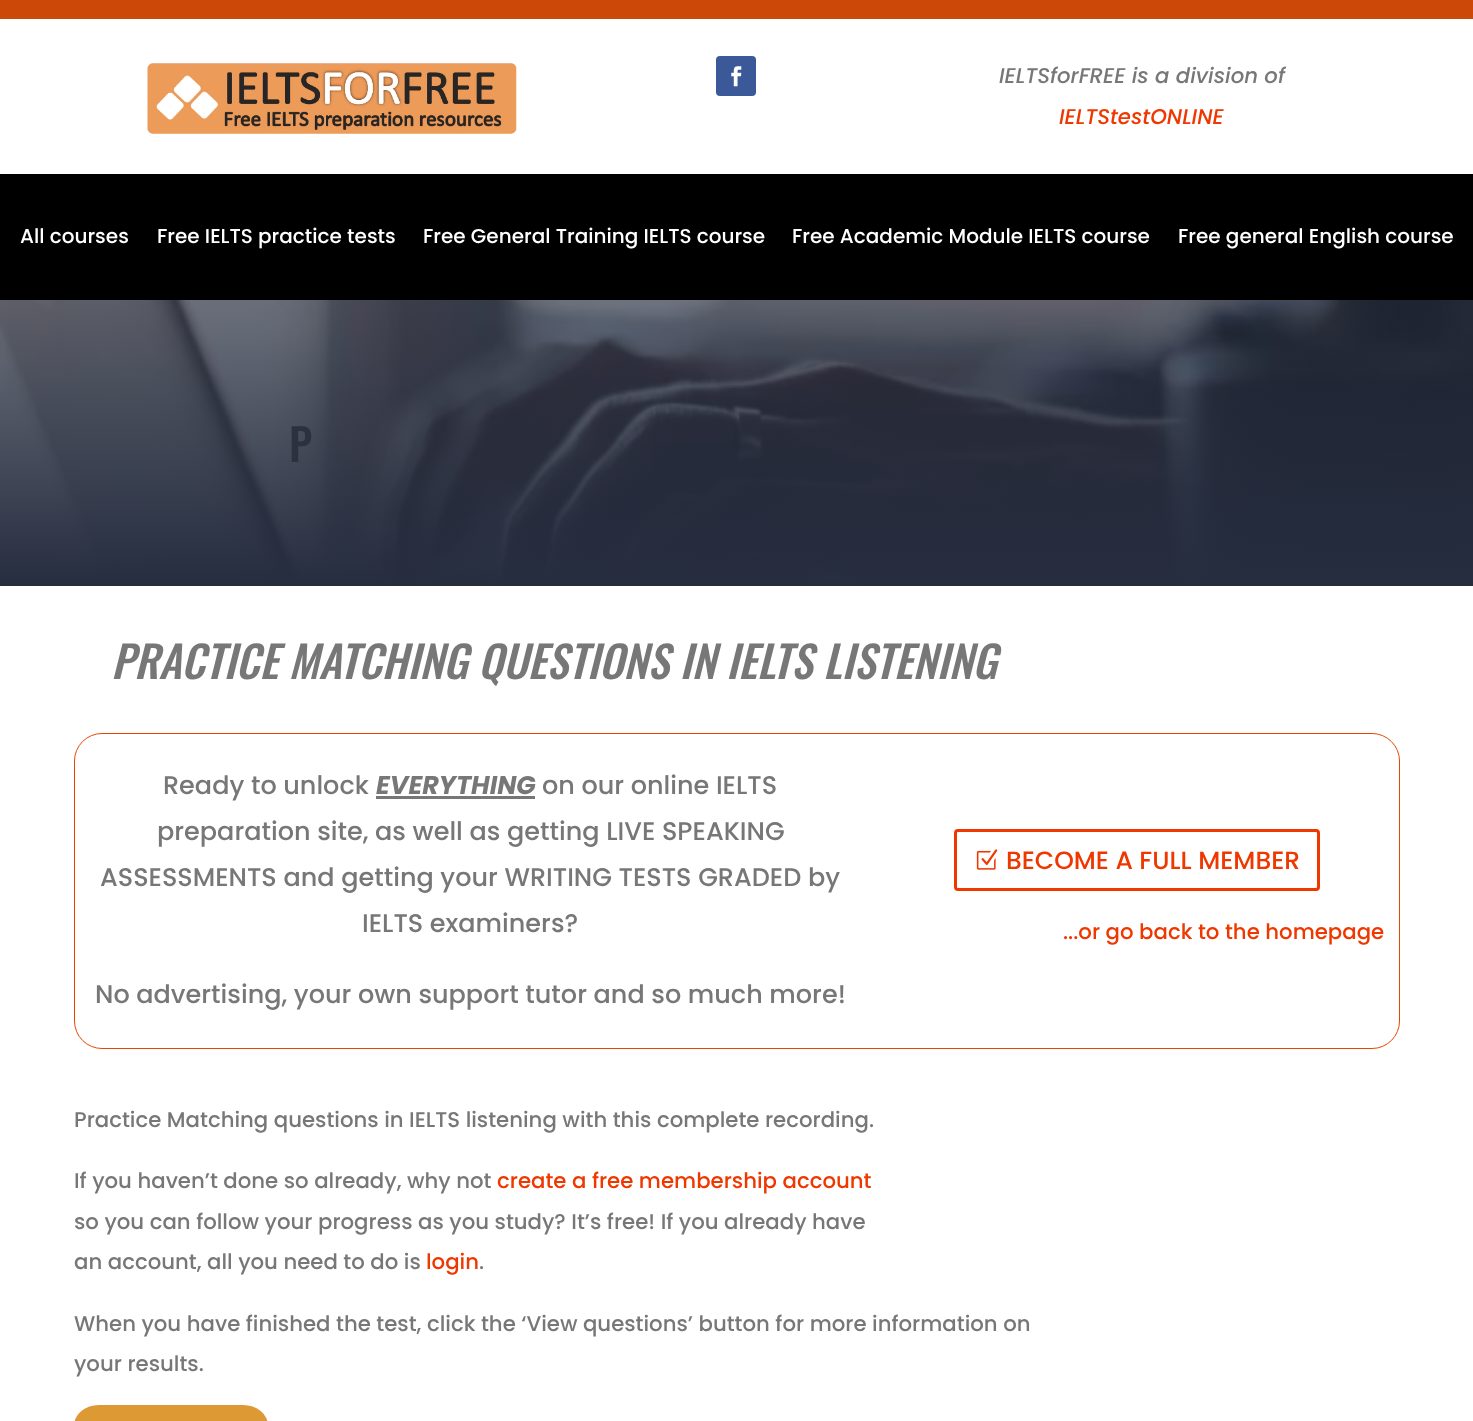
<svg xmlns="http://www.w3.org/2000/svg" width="1473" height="1421">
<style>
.a{font:italic 500 21.25px Poppins;fill:#777}
.b{font:italic 500 21.25px Poppins;fill:#ef3700}
.c{font:500 20px Poppins;fill:#fff}
.d{font:500 44px Oswald;fill:#2c303f}
.e{font:italic 500 43.75px Oswald;fill:#777}
.f{font:500 25.5px Poppins;fill:#777}
.g{font:italic bold 25.5px Poppins;fill:#777}
.h{font:500 25px Poppins;fill:#ef3700}
.i{font:500 21.25px Poppins;fill:#ef3700}
.j{font:500 21.25px Poppins;fill:#777}
</style>
<rect width="100%" height="100%" fill="#fff"/>
<path fill="#cb4809" d="M0 0h1473v19H0z"/>
<image href="1.png" x="147" y="63" width="370" height="71"/>
<rect fill="#3b5998" x="716" y="56" width="40" height="40" rx="4"/>
<image href="2.png" x="731" y="66" width="11" height="21"/>
<path fill="#000" d="M0 174h1473v126H0z"/>
<image href="3.png" x="0" y="300" width="1473" height="286"/>
<rect fill="none" stroke="#e84500" x="74.5" y="733.5" width="1325" height="315" rx="27.5"/>
<path fill="#777" d="M376 796h159v3H376z"/>
<rect fill="none" stroke="#ef3700" stroke-width="3" x="955.5" y="830.5" width="363" height="59" rx="2.5"/>
<image href="4.png" x="976" y="849" width="22" height="21"/>
<rect fill="#d93" x="74" y="1405" width="194" height="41" rx="25"/>
<text class="a" x="999" y="83">IELTSforFREE is a division of</text>
<text class="b" x="1059" y="124">IELTStestONLINE</text>
<text class="c" x="20" y="243">All courses</text>
<text class="c" x="157" y="243">Free IELTS practice tests</text>
<text class="c" x="423" y="243">Free General Training IELTS course</text>
<text class="c" x="792" y="243">Free Academic Module IELTS course</text>
<text class="c" x="1178" y="243">Free general English course</text>
<text class="d" x="289" y="462">P</text>
<text class="e" x="111" y="679">PRACTICE MATCHING QUESTIONS IN IELTS LISTENING</text>
<text class="f" x="163" y="794">Ready to unlock</text>
<text class="g" x="376" y="794">EVERYTHING</text>
<text class="f" x="542" y="794">on our online IELTS</text>
<text class="f" x="157" y="840">preparation site, as well as getting LIVE SPEAKING</text>
<text class="f" x="100" y="886">ASSESSMENTS and getting your WRITING TESTS GRADED by</text>
<text class="f" x="362" y="932">IELTS examiners?</text>
<text class="f" x="95" y="1003">No advertising, your own support tutor and so much more!</text>
<text class="h" x="1006" y="869">BECOME A FULL MEMBER</text>
<text class="i" x="1063" y="939">...or go back to the homepage</text>
<text class="j" x="74" y="1127">Practice Matching questions in IELTS listening with this complete recording.</text>
<text class="j" x="74" y="1188">If you haven’t done so already, why not</text>
<text class="i" x="497" y="1188">create a free membership account</text>
<text class="j" x="74" y="1229">so you can follow your progress as you study? It’s free! If you already have</text>
<text class="j" x="74" y="1269">an account, all you need to do is</text>
<text class="i" x="426" y="1269">login</text>
<text class="j" x="479" y="1269">.</text>
<text class="j" x="74" y="1331">When you have finished the test, click the ‘View questions’ button for more information on</text>
<text class="j" x="74" y="1371">your results.</text>
</svg>
